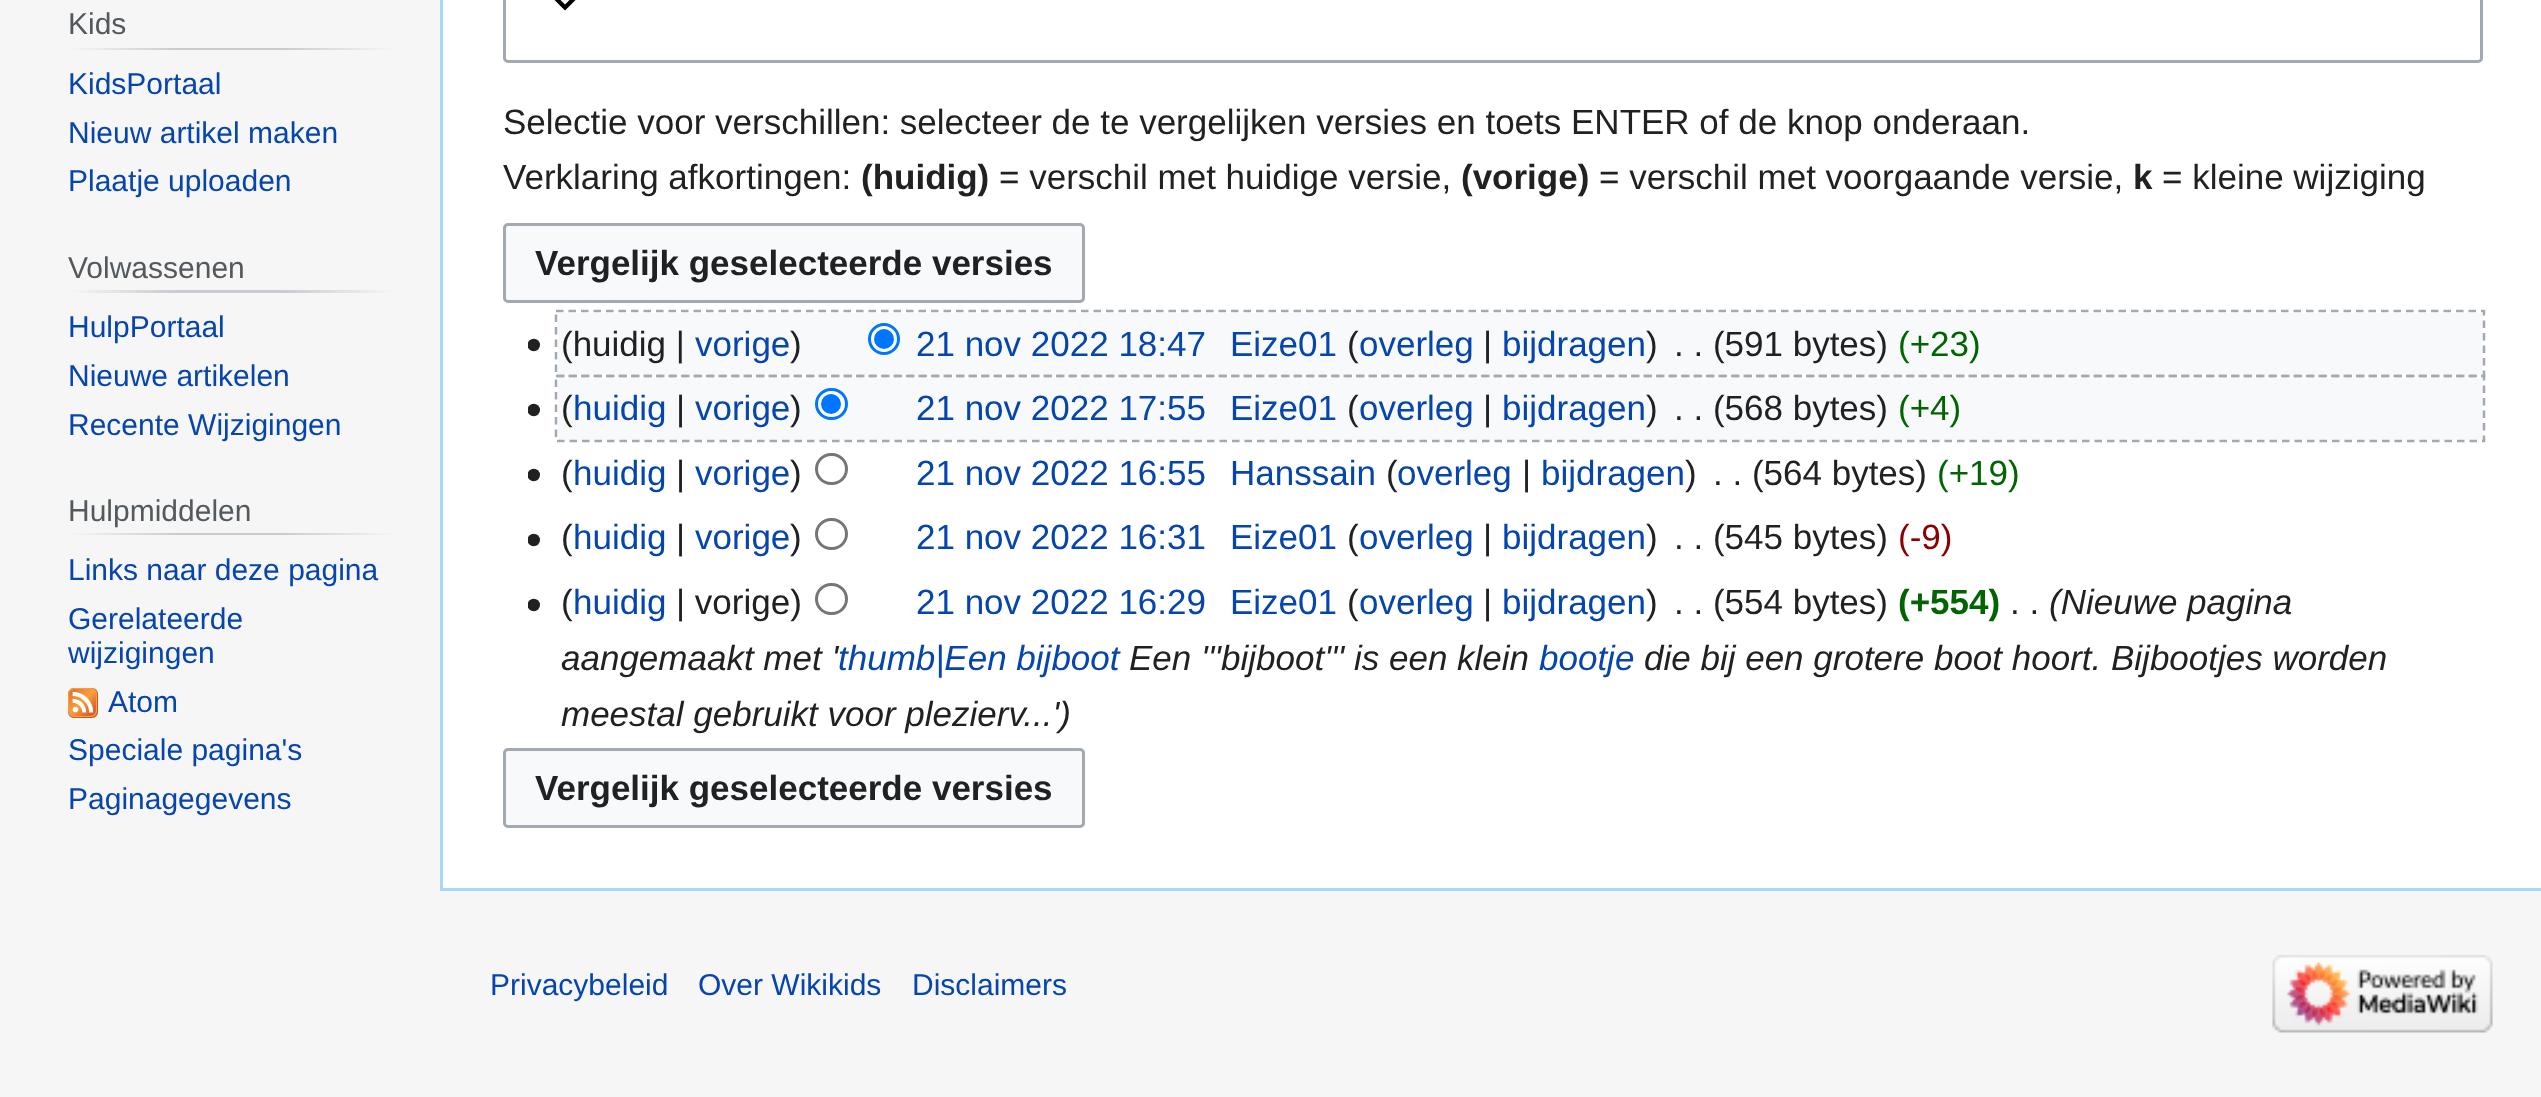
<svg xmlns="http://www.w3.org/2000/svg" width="2541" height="1097">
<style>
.a{font:30px Liberation Sans;fill:#54595d}
.b{font:30px Liberation Sans;fill:#0645ad}
.c{font:35px Liberation Sans;fill:#202122}
.d{font:bold 35px Liberation Sans;fill:#202122}
.e{font:35px Liberation Sans;fill:#0645ad}
.f{font:35px Liberation Sans;fill:#006400}
.g{font:35px Liberation Sans;fill:#8b0000}
.h{font:bold 35px Liberation Sans;fill:#006400}
.i{font:italic 35px Liberation Sans;fill:#202122}
.j{font:italic 35px Liberation Sans;fill:#0645ad}
</style>
<defs>
<linearGradient id="g1" gradientUnits="userSpaceOnUse" x1="68" y1="49" x2="395" y2="49"><stop offset="0" stop-color="#f6f6f6"/><stop offset="0.33" stop-color="#c8ccd1"/><stop offset="0.66" stop-color="#c8ccd1"/><stop offset="1" stop-color="#f6f6f6"/></linearGradient>
<linearGradient id="g2" gradientUnits="userSpaceOnUse" x1="68" y1="291" x2="395" y2="291"><stop offset="0" stop-color="#f6f6f6"/><stop offset="0.33" stop-color="#c8ccd1"/><stop offset="0.66" stop-color="#c8ccd1"/><stop offset="1" stop-color="#f6f6f6"/></linearGradient>
<linearGradient id="g3" gradientUnits="userSpaceOnUse" x1="68" y1="534" x2="395" y2="534"><stop offset="0" stop-color="#f6f6f6"/><stop offset="0.33" stop-color="#c8ccd1"/><stop offset="0.66" stop-color="#c8ccd1"/><stop offset="1" stop-color="#f6f6f6"/></linearGradient>
</defs>
<rect width="100%" height="100%" fill="#f6f6f6"/>
<path fill="url(#g1)" d="M68 48h327v2H68z"/>
<path fill="url(#g2)" d="M68 290h327v3H68z"/>
<path fill="url(#g3)" d="M68 533h327v2H68z"/>
<image href="1.png" x="68" y="688" width="30" height="30"/>
<path fill="#fff" d="M443 0h2098v888H443z"/>
<path fill="#a7d7f9" d="M440 888h2101v3H440z"/>
<path fill="#a7d7f9" d="M440 0h3v890H440z"/>
<rect fill="none" stroke="#a2a9b1" stroke-width="3" x="504.5" y="-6.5" width="1977" height="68" rx="3.5"/>
<path fill="#000" d="M580-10.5l-15 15l-15-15l-3 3l18 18l18-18z"/>
<rect fill="#f8f9fa" stroke="#a2a9b1" stroke-width="3" x="504.5" y="224.5" width="579" height="77" rx="3.5"/>
<path fill="#f8f9fa" d="M558 313h1925v62H558z"/>
<image href="2.png" x="528" y="338" width="12" height="14"/>
<circle fill="#fff" stroke="#0075ff" stroke-width="3" cx="884" cy="339" r="14.5"/>
<circle fill="#0075ff" cx="884" cy="339" r="10"/>
<path fill="#f8f9fa" d="M558 378h1925v62H558z"/>
<image href="2.png" x="528" y="403" width="12" height="14"/>
<rect fill="#fff" stroke="#0075ff" stroke-width="3" x="816.5" y="389.5" width="30" height="29" rx="14.5"/>
<circle fill="#0075ff" cx="831" cy="404" r="10"/>
<image href="2.png" x="528" y="468" width="12" height="14"/>
<rect fill="none" stroke="#767676" stroke-width="3" x="816.5" y="454.5" width="30" height="29" rx="14.5"/>
<image href="2.png" x="528" y="533" width="12" height="14"/>
<rect fill="none" stroke="#767676" stroke-width="3" x="816.5" y="519.5" width="30" height="29" rx="14.5"/>
<image href="2.png" x="528" y="598" width="12" height="14"/>
<rect fill="none" stroke="#767676" stroke-width="3" x="816.5" y="584.5" width="30" height="29" rx="14.5"/>
<rect fill="#f8f9fa" stroke="#a2a9b1" stroke-width="3" x="504.5" y="749.5" width="579" height="77" rx="3.5"/>
<image href="3.png" x="2272" y="955" width="221" height="78"/>
<text class="a" x="68" y="34">Kids</text>
<text class="b" x="68" y="94">KidsPortaal</text>
<text class="b" x="68" y="143">Nieuw artikel maken</text>
<text class="b" x="68" y="191">Plaatje uploaden</text>
<text class="a" x="68" y="278">Volwassenen</text>
<text class="b" x="68" y="337">HulpPortaal</text>
<text class="b" x="68" y="386">Nieuwe artikelen</text>
<text class="b" x="68" y="435">Recente Wijzigingen</text>
<text class="a" x="68" y="521">Hulpmiddelen</text>
<text class="b" x="68" y="580">Links naar deze pagina</text>
<text class="b" x="68" y="629">Gerelateerde</text>
<text class="b" x="68" y="663">wijzigingen</text>
<text class="b" x="108" y="712">Atom</text>
<text class="b" x="68" y="760">Speciale pagina's</text>
<text class="b" x="68" y="809">Paginagegevens</text>
<text class="c" x="503" y="134">Selectie voor verschillen: selecteer de te vergelijken versies en toets ENTER of de knop onderaan.</text>
<text class="c" x="503" y="189">Verklaring afkortingen:</text>
<text class="d" x="861" y="189">(huidig)</text>
<text class="c" x="999" y="189">= verschil met huidige versie,</text>
<text class="d" x="1461" y="189">(vorige)</text>
<text class="c" x="1599" y="189">= verschil met voorgaande versie,</text>
<text class="d" x="2133" y="189">k</text>
<text class="c" x="2162" y="189">= kleine wijziging</text>
<text class="d" x="535" y="275">Vergelijk geselecteerde versies</text>
<text class="c" x="561" y="356">(huidig |</text>
<text class="e" x="695" y="356">vorige</text>
<text class="c" x="790" y="356">)</text>
<text class="e" x="916" y="356">21 nov 2022 18:47</text>
<text class="e" x="1230" y="356">Eize01</text>
<text class="c" x="1347" y="356">(</text>
<text class="e" x="1359" y="356">overleg</text>
<text class="c" x="1483" y="356">|</text>
<text class="e" x="1502" y="356">bijdragen</text>
<text class="c" x="1646" y="356">)</text>
<text class="c" x="1674" y="356">. . (591 bytes)</text>
<text class="f" x="1898" y="356">(+23)</text>
<path fill="none" stroke="#a2a9b1" stroke-width="2.5" stroke-dasharray="7.5 5" d="M556 311h1928v65h-1928z"/>
<text class="c" x="561" y="420">(</text>
<text class="e" x="573" y="420">huidig</text>
<text class="c" x="676" y="420">|</text>
<text class="e" x="695" y="420">vorige</text>
<text class="c" x="790" y="420">)</text>
<text class="e" x="916" y="420">21 nov 2022 17:55</text>
<text class="e" x="1230" y="420">Eize01</text>
<text class="c" x="1347" y="420">(</text>
<text class="e" x="1359" y="420">overleg</text>
<text class="c" x="1483" y="420">|</text>
<text class="e" x="1502" y="420">bijdragen</text>
<text class="c" x="1646" y="420">)</text>
<text class="c" x="1674" y="420">. . (568 bytes)</text>
<text class="f" x="1898" y="420">(+4)</text>
<path fill="none" stroke="#a2a9b1" stroke-width="2.5" stroke-dasharray="7.5 5" d="M556 376h1928v65h-1928z"/>
<text class="c" x="561" y="485">(</text>
<text class="e" x="573" y="485">huidig</text>
<text class="c" x="676" y="485">|</text>
<text class="e" x="695" y="485">vorige</text>
<text class="c" x="790" y="485">)</text>
<text class="e" x="916" y="485">21 nov 2022 16:55</text>
<text class="e" x="1230" y="485">Hanssain</text>
<text class="c" x="1386" y="485">(</text>
<text class="e" x="1397" y="485">overleg</text>
<text class="c" x="1522" y="485">|</text>
<text class="e" x="1541" y="485">bijdragen</text>
<text class="c" x="1685" y="485">)</text>
<text class="c" x="1713" y="485">. . (564 bytes)</text>
<text class="f" x="1937" y="485">(+19)</text>
<text class="c" x="561" y="549">(</text>
<text class="e" x="573" y="549">huidig</text>
<text class="c" x="676" y="549">|</text>
<text class="e" x="695" y="549">vorige</text>
<text class="c" x="790" y="549">)</text>
<text class="e" x="916" y="549">21 nov 2022 16:31</text>
<text class="e" x="1230" y="549">Eize01</text>
<text class="c" x="1347" y="549">(</text>
<text class="e" x="1359" y="549">overleg</text>
<text class="c" x="1483" y="549">|</text>
<text class="e" x="1502" y="549">bijdragen</text>
<text class="c" x="1646" y="549">)</text>
<text class="c" x="1674" y="549">. . (545 bytes)</text>
<text class="g" x="1898" y="549">(-9)</text>
<text class="c" x="561" y="614">(</text>
<text class="e" x="573" y="614">huidig</text>
<text class="c" x="676" y="614">| vorige)</text>
<text class="e" x="916" y="614">21 nov 2022 16:29</text>
<text class="e" x="1230" y="614">Eize01</text>
<text class="c" x="1347" y="614">(</text>
<text class="e" x="1359" y="614">overleg</text>
<text class="c" x="1483" y="614">|</text>
<text class="e" x="1502" y="614">bijdragen</text>
<text class="c" x="1646" y="614">)</text>
<text class="c" x="1674" y="614">. . (554 bytes)</text>
<text class="h" x="1898" y="614">(+554)</text>
<text class="c" x="2010" y="614">. .</text>
<text class="i" x="2049" y="614">(Nieuwe pagina</text>
<text class="i" x="561" y="670">aangemaakt met '</text>
<text class="j" x="838" y="670">thumb|Een bijboot</text>
<text class="i" x="1129" y="670">Een '''bijboot''' is een klein</text>
<text class="j" x="1539" y="670">bootje</text>
<text class="i" x="1644" y="670">die bij een grotere boot hoort. Bijbootjes worden</text>
<text class="i" x="561" y="726">meestal gebruikt voor plezierv...')</text>
<text class="d" x="535" y="800">Vergelijk geselecteerde versies</text>
<text class="b" x="490" y="995">Privacybeleid</text>
<text class="b" x="698" y="995">Over Wikikids</text>
<text class="b" x="912" y="995">Disclaimers</text>
</svg>
